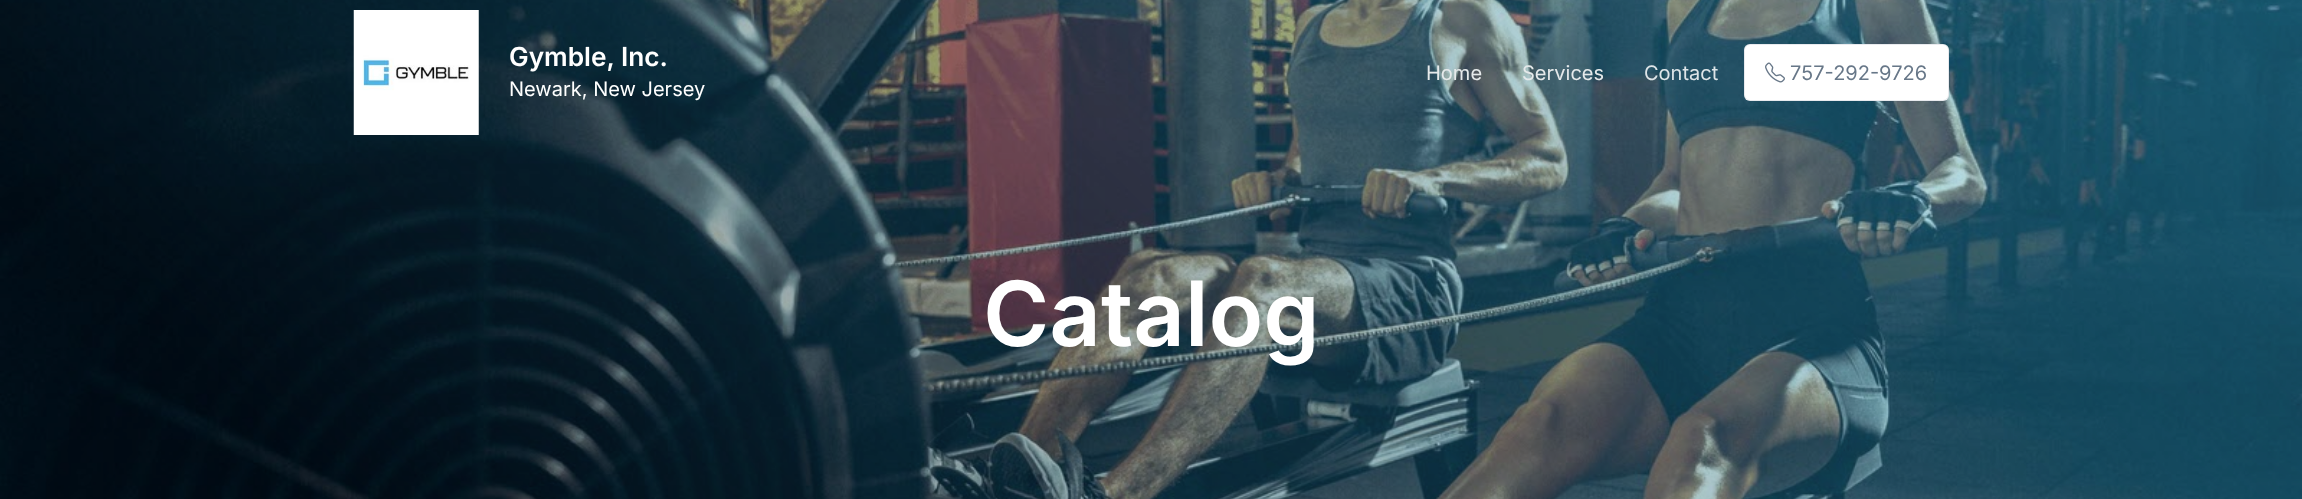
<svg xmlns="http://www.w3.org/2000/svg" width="2302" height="499">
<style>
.a{font:600 26.25px Inter;fill:#fff}
.b{font:20px Inter;fill:#fff}
.c{font:20px Inter;fill:#e6eaeb}
.d{font:20px Inter;fill:#dee5e8}
.e{font:20px Inter;fill:#677788}
.f{font:600 90px Inter;fill:#fff}
</style>
<rect width="100%" height="100%" fill="#fff"/>
<image href="3.png" x="0" y="0" width="2302" height="499"/>
<image href="1.png" x="353" y="10" width="126" height="125"/>
<rect fill="#fff" x="1744" y="44" width="205" height="57" rx="6"/>
<rect fill="none" stroke="#21325b1a" x="1744.5" y="44.5" width="204" height="56" rx="5.5"/>
<image href="2.png" x="1765" y="62" width="20" height="21"/>
<text class="a" x="509" y="66">Gymble, Inc.</text>
<text class="b" x="509" y="96">Newark, New Jersey</text>
<text class="c" x="1426" y="80">Home</text>
<text class="c" x="1522" y="80">Services</text>
<text class="d" x="1644" y="80">Contact</text>
<text class="e" x="1790" y="80">757-292-9726</text>
<text class="f" x="983" y="346">Catalog</text>
</svg>
